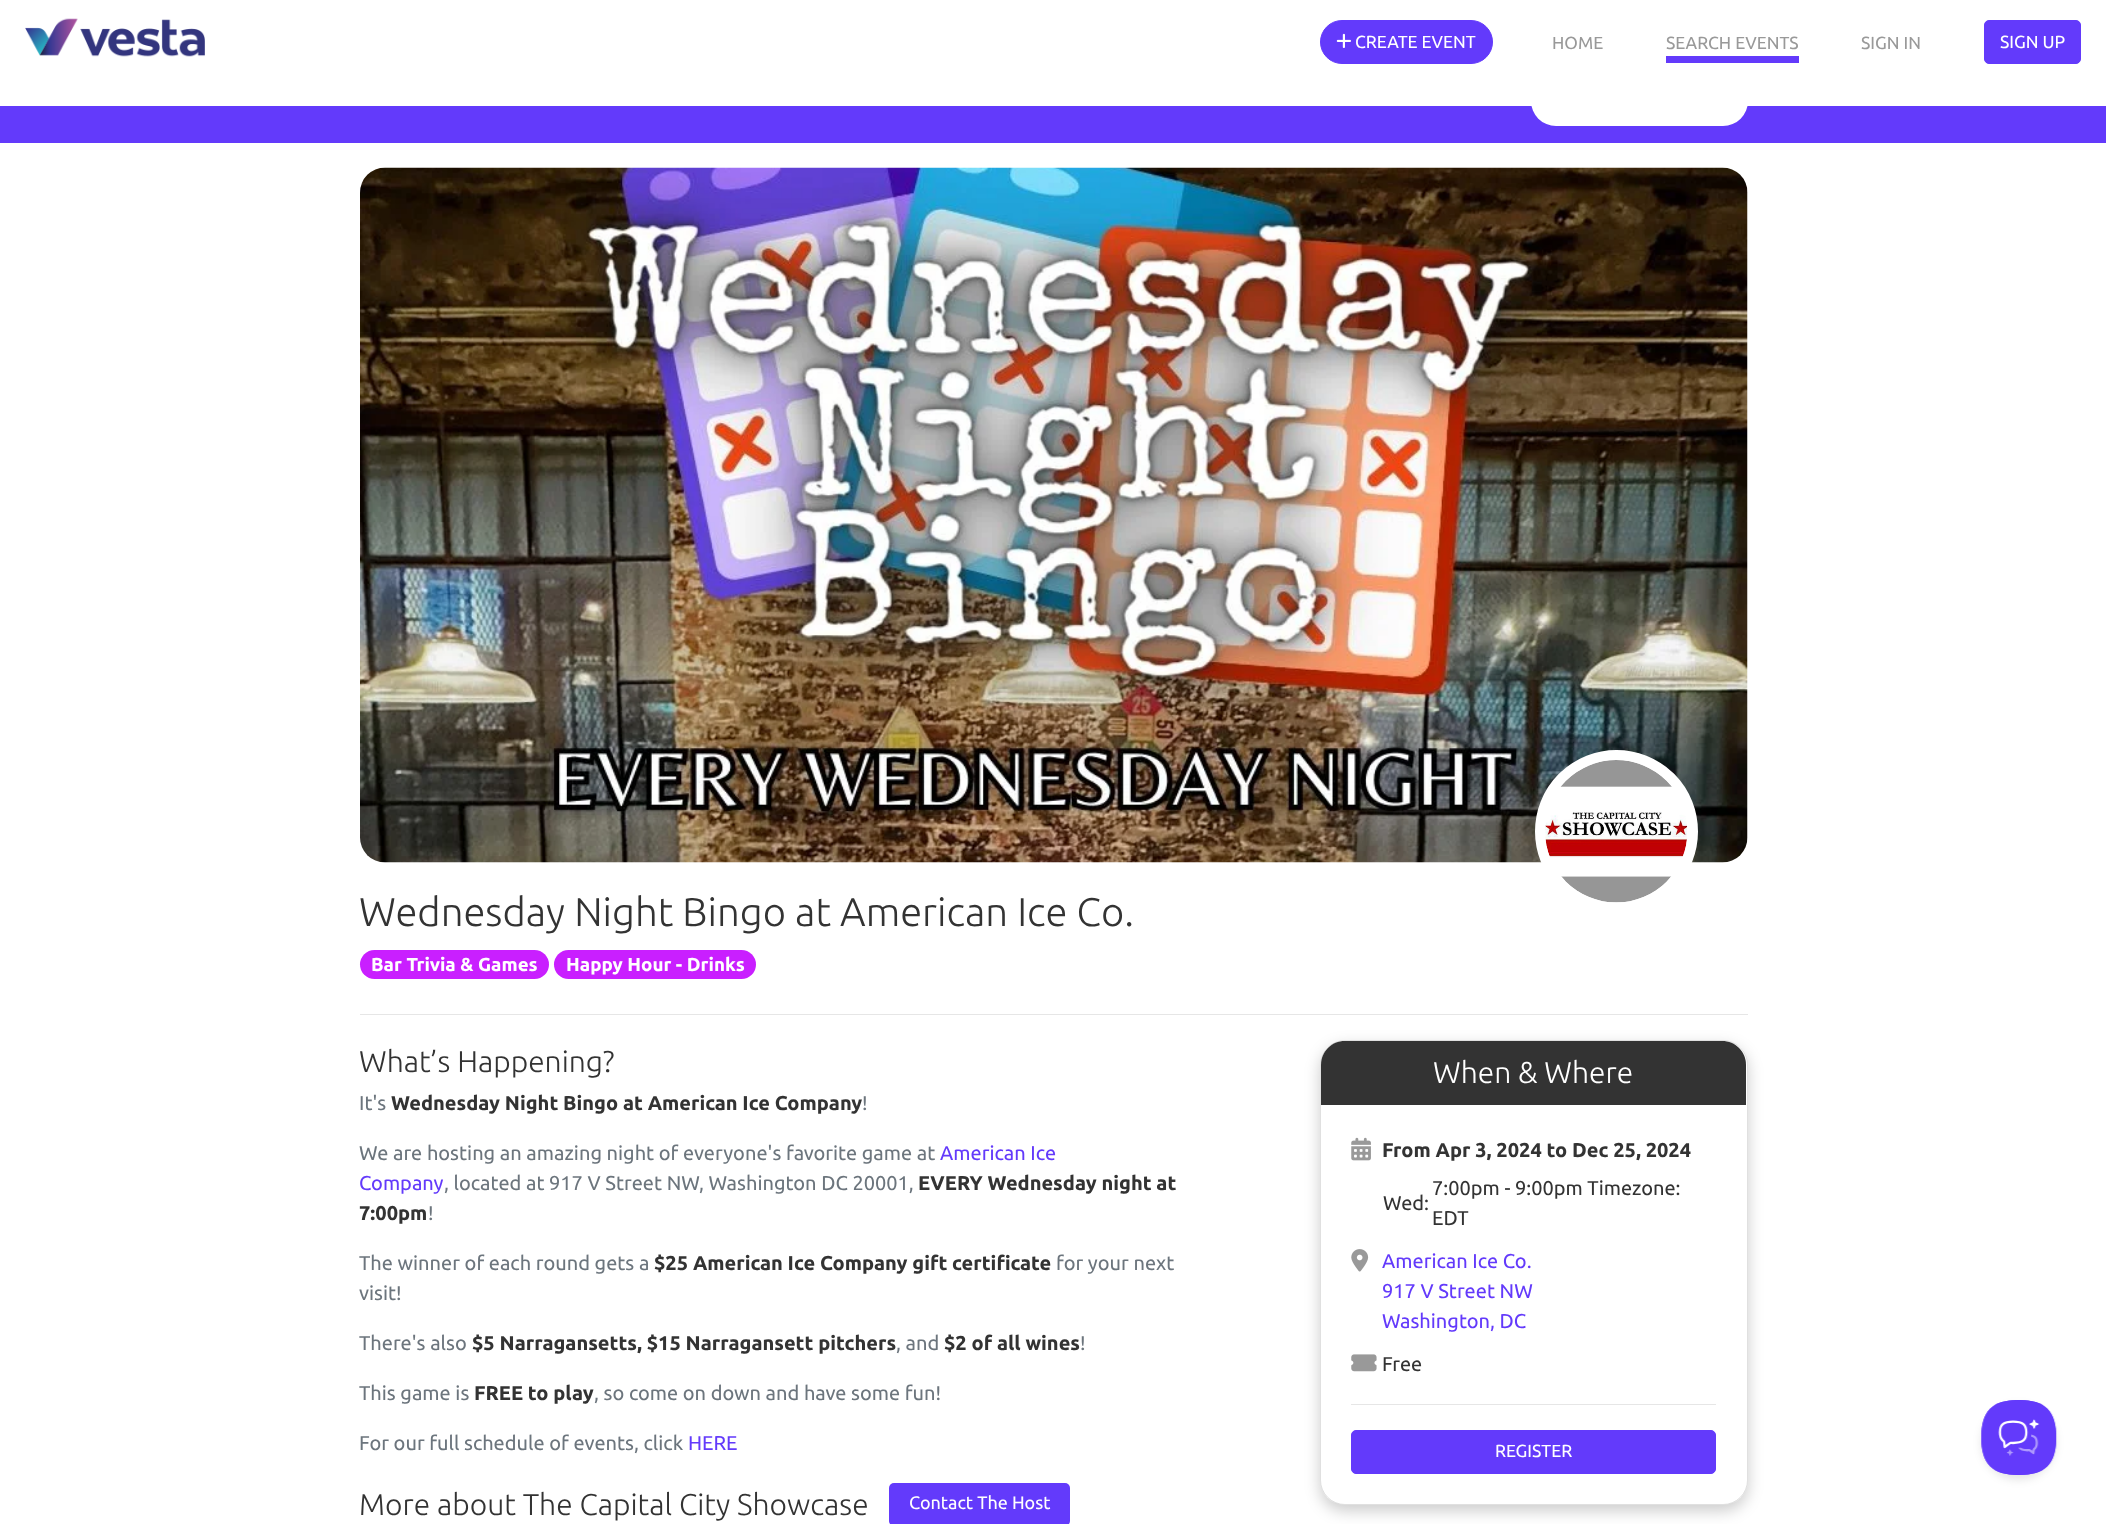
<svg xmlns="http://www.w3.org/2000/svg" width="2106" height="1524">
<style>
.a{font:17.5px Ubuntu;fill:#fff}
.b{font:17.5px Ubuntu;fill:#999}
.c{font:300 40px Ubuntu;fill:#333}
.d{font:bold 18.75px Ubuntu;fill:#fff}
.e{font:300 30px Ubuntu;fill:#333}
.f{font:20px Ubuntu;fill:#6c757d}
.g{font:bold 20px Ubuntu;fill:#333}
.h{font:20px Ubuntu;fill:#633afb}
.i{font:18px Ubuntu;fill:#fff}
.j{font:300 30px Ubuntu;fill:#fff}
.k{font:20px Ubuntu;fill:#333}
</style>
<rect width="100%" height="100%" fill="#fff"/>
<image href="1.png" x="25" y="18" width="180" height="39"/>
<rect fill="#633afb" stroke="#633afb" x="1320.5" y="20.5" width="172" height="43" rx="21.5"/>
<image href="2.png" x="1336" y="33" width="15" height="15"/>
<path fill="#633afb" d="M1666 56h133v7H1666z"/>
<rect fill="#633afb" stroke="#633afb" x="1984.5" y="20.5" width="96" height="43" rx="4.5"/>
<path fill="#633afb" d="M0 106h2106v37H0z"/>
<rect fill="#fff" x="1531" y="76" width="217" height="50" rx="25"/>
<image href="3.png" x="360" y="167" width="1388" height="696"/>
<circle fill="#fff" stroke="#fff" stroke-width="10" cx="1616.5" cy="831.5" r="76.5"/>
<image href="4.png" x="1545" y="760" width="143" height="143"/>
<rect fill="#c91fff" x="360" y="950" width="189" height="29" rx="14.5"/>
<rect fill="#c91fff" x="554" y="950" width="202" height="29" rx="14.5"/>
<path fill="#e6e6e6" d="M360 1014h1388v1H360z"/>
<rect fill="#633afb" x="889" y="1483" width="181" height="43" rx="5"/>
<rect fill="#00000033" filter="blur(7.5px)" x="1320" y="1046" width="428" height="465" rx="25"/>
<rect fill="#fff" x="1320" y="1040" width="428" height="465" rx="25"/>
<rect fill="none" stroke="#0000001f" x="1320.5" y="1040.5" width="427" height="464" rx="24.5"/>
<path fill="#333" d="M1345 1041h377c13.5 0 24 10.5 24 24v40h-425v-40c0-13.5 10.5-24 24-24z"/>
<image href="5.png" x="1351" y="1137" width="20" height="24"/>
<image href="6.png" x="1351" y="1249" width="18" height="23"/>
<image href="7.png" x="1351" y="1354" width="26" height="18"/>
<path fill="#e6e6e6" d="M1351 1404h365v1H1351z"/>
<rect fill="#633afb" stroke="#633afb" x="1351.5" y="1430.5" width="364" height="43" rx="4.5"/>
<rect fill="#0000001a" filter="blur(4.5px)" x="1981" y="1405" width="75" height="75" rx="37.5"/>
<image href="8.png" x="1981" y="1400" width="76" height="75"/>
<text class="a" x="1355" y="48">CREATE EVENT</text>
<text class="b" x="1552" y="49">HOME</text>
<text class="b" x="1666" y="49">SEARCH EVENTS</text>
<text class="b" x="1861" y="49">SIGN IN</text>
<text class="a" x="2000" y="48">SIGN UP</text>
<text class="c" x="359" y="926">Wednesday Night Bingo at American Ice Co.</text>
<text class="d" x="371" y="971">Bar Trivia &amp; Games</text>
<text class="d" x="566" y="971">Happy Hour - Drinks</text>
<text class="e" x="359" y="1072">What’s Happening?</text>
<text class="f" x="359" y="1110">It's</text>
<text class="g" x="391" y="1110">Wednesday Night Bingo at American Ice Company</text>
<text class="f" x="862" y="1110">!</text>
<text class="f" x="359" y="1160">We are hosting an amazing night of everyone's favorite game at</text>
<text class="h" x="940" y="1160">American Ice</text>
<text class="h" x="359" y="1190">Company</text>
<text class="f" x="444" y="1190">, located at 917 V Street NW, Washington DC 20001,</text>
<text class="g" x="918" y="1190">EVERY Wednesday night at</text>
<text class="g" x="359" y="1220">7:00pm</text>
<text class="f" x="428" y="1220">!</text>
<text class="f" x="359" y="1270">The winner of each round gets a</text>
<text class="g" x="654" y="1270">$25 American Ice Company gift certificate</text>
<text class="f" x="1056" y="1270">for your next</text>
<text class="f" x="359" y="1300">visit!</text>
<text class="f" x="359" y="1350">There's also</text>
<text class="g" x="472" y="1350">$5 Narragansetts, $15 Narragansett pitchers</text>
<text class="f" x="896" y="1350">, and</text>
<text class="g" x="944" y="1350">$2 of all wines</text>
<text class="f" x="1080" y="1350">!</text>
<text class="f" x="359" y="1400">This game is</text>
<text class="g" x="474" y="1400">FREE to play</text>
<text class="f" x="594" y="1400">, so come on down and have some fun!</text>
<text class="f" x="359" y="1450">For our full schedule of events, click</text>
<text class="h" x="688" y="1450">HERE</text>
<text class="e" x="359" y="1515">More about The Capital City Showcase</text>
<text class="i" x="909" y="1509">Contact The Host</text>
<text class="j" x="1433" y="1083">When &amp; Where</text>
<text class="g" x="1382" y="1157">From Apr 3, 2024 to Dec 25, 2024</text>
<text class="k" x="1383" y="1210">Wed:</text>
<text class="k" x="1432" y="1195">7:00pm - 9:00pm Timezone:</text>
<text class="k" x="1432" y="1225">EDT</text>
<text class="h" x="1382" y="1268">American Ice Co.</text>
<text class="h" x="1382" y="1298">917 V Street NW</text>
<text class="h" x="1382" y="1328">Washington, DC</text>
<text class="k" x="1382" y="1371">Free</text>
<text class="a" x="1495" y="1457">REGISTER</text>
</svg>
